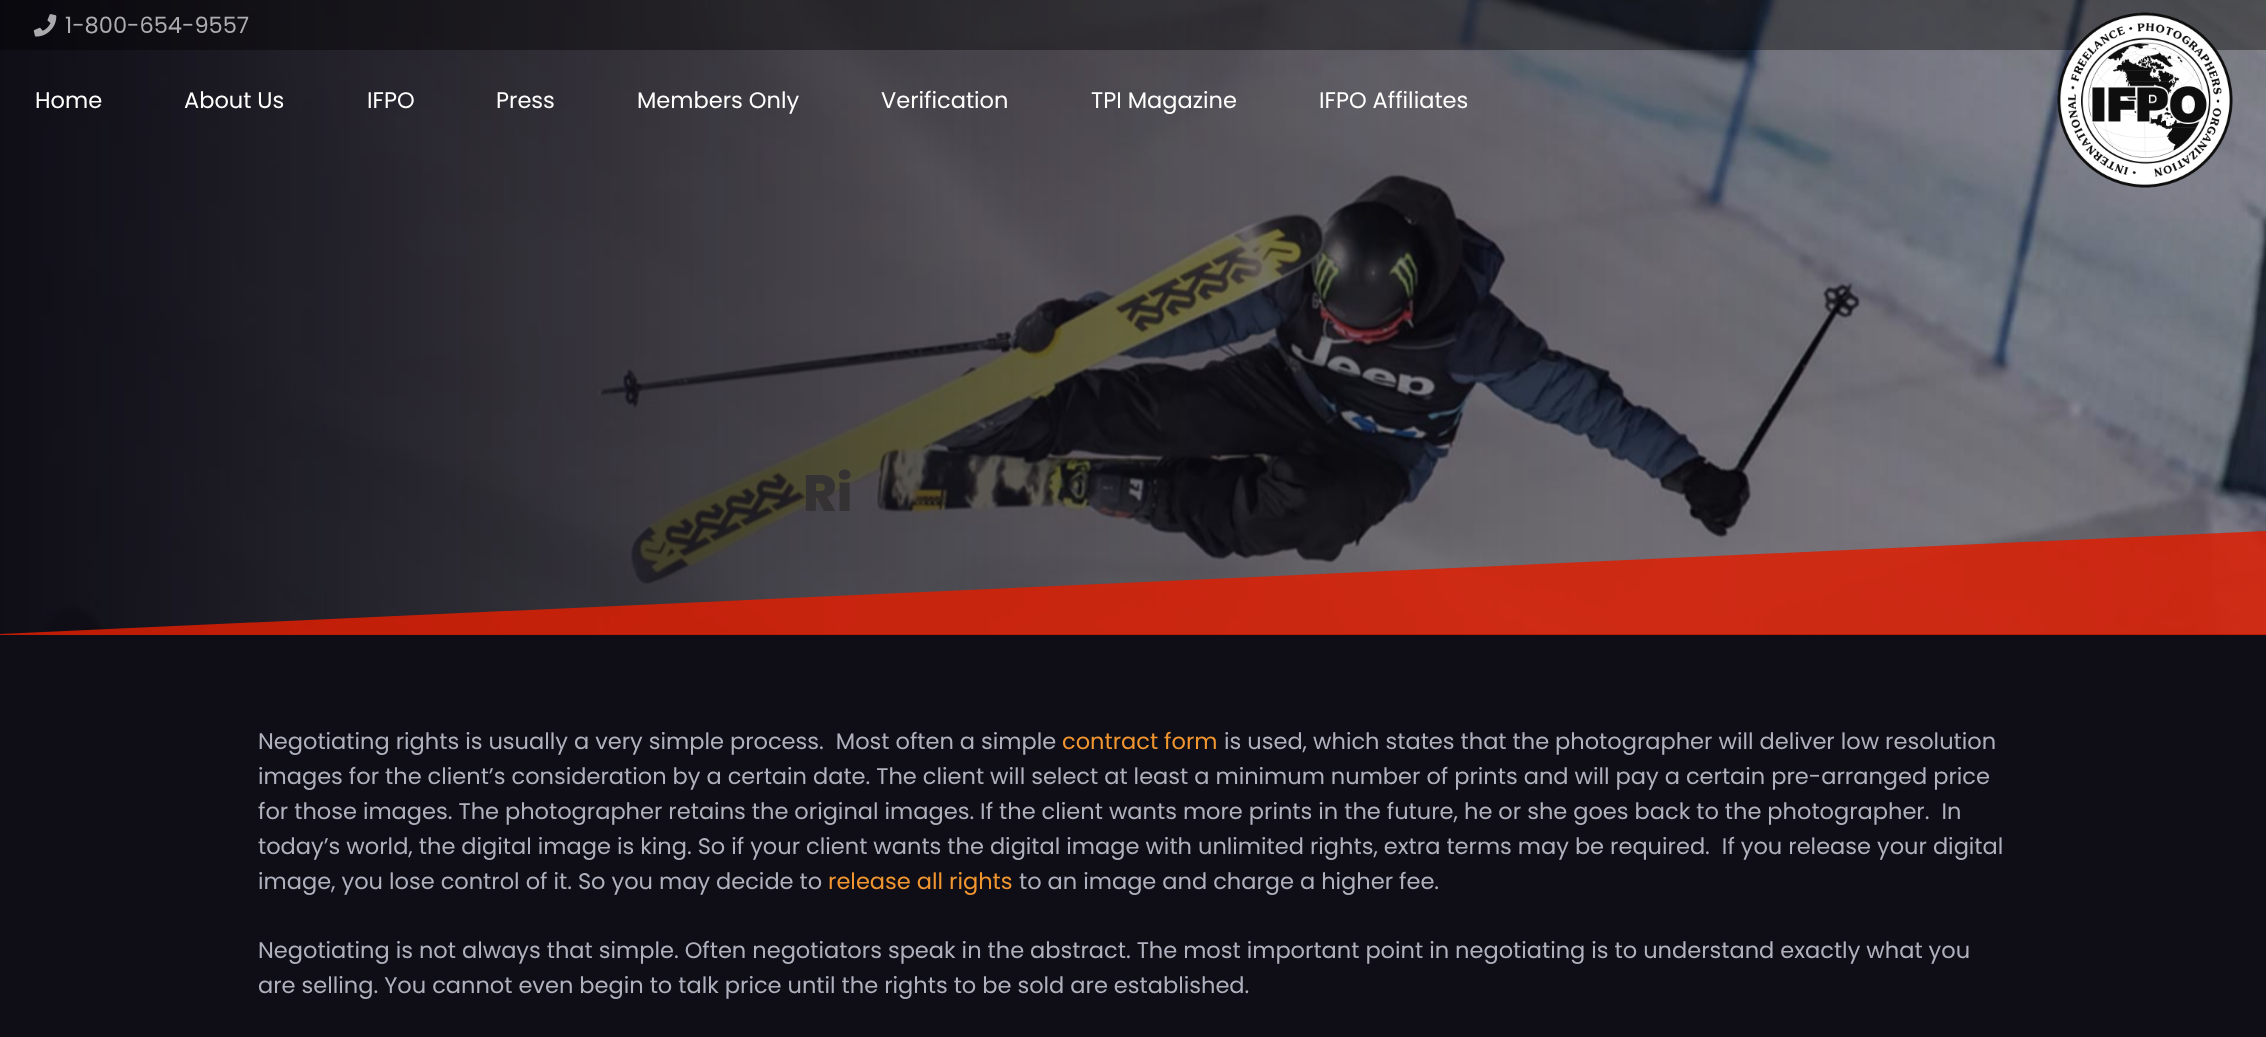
<svg xmlns="http://www.w3.org/2000/svg" width="2266" height="1037">
<style>
.a{font:22.5px Poppins;fill:#adadaf}
.b{font:22.5px Poppins;fill:#fffffe}
.c{font:800 51px Poppins;fill:#353234}
.d{font:22.5px Poppins;fill:#afb1bd}
.e{font:22.5px Poppins;fill:#f29630}
</style>
<defs>
<clipPath id="clip1"><path d="M0 531h2266v104H0z"/></clipPath>
</defs>
<rect width="100%" height="100%" fill="#0f0e17"/>
<image href="3.png" x="0" y="0" width="2266" height="634"/>
<path fill="#00000061" d="M0 0h2266v50H0z"/>
<image href="1.png" x="33" y="14" width="24" height="23"/>
<image href="2.png" x="2057" y="12" width="176" height="176"/>
<g clip-path="url(#clip1)">
<path fill="#de1e04d9" d="M0 634v27h2266v-130z"/>
</g>
<text class="a" x="65" y="33">1-800-654-9557</text>
<text class="b" x="35" y="108">Home</text>
<text class="b" x="184" y="108">About Us</text>
<text class="b" x="367" y="108">IFPO</text>
<text class="b" x="496" y="108">Press</text>
<text class="b" x="637" y="108">Members Only</text>
<text class="b" x="881" y="108">Verification</text>
<text class="b" x="1091" y="108">TPI Magazine</text>
<text class="b" x="1319" y="108">IFPO Affiliates</text>
<text class="c" x="803" y="511">Ri</text>
<text class="d" xml:space="preserve" x="258" y="749">Negotiating rights is usually a very simple process.  Most often a simple</text>
<text class="e" x="1062" y="749">contract form</text>
<text class="d" x="1224" y="749">is used, which states that the photographer will deliver low resolution</text>
<text class="d" x="258" y="784">images for the client’s consideration by a certain date. The client will select at least a minimum number of prints and will pay a certain pre-arranged price</text>
<text class="d" xml:space="preserve" x="258" y="819">for those images. The photographer retains the original images. If the client wants more prints in the future, he or she goes back to the photographer.  In</text>
<text class="d" xml:space="preserve" x="258" y="854">today’s world, the digital image is king. So if your client wants the digital image with unlimited rights, extra terms may be required.  If you release your digital</text>
<text class="d" x="258" y="889">image, you lose control of it. So you may decide to</text>
<text class="e" x="828" y="889">release all rights</text>
<text class="d" x="1019" y="889">to an image and charge a higher fee.</text>
<text class="d" x="258" y="958">Negotiating is not always that simple. Often negotiators speak in the abstract. The most important point in negotiating is to understand exactly what you</text>
<text class="d" x="258" y="993">are selling. You cannot even begin to talk price until the rights to be sold are established.</text>
</svg>
